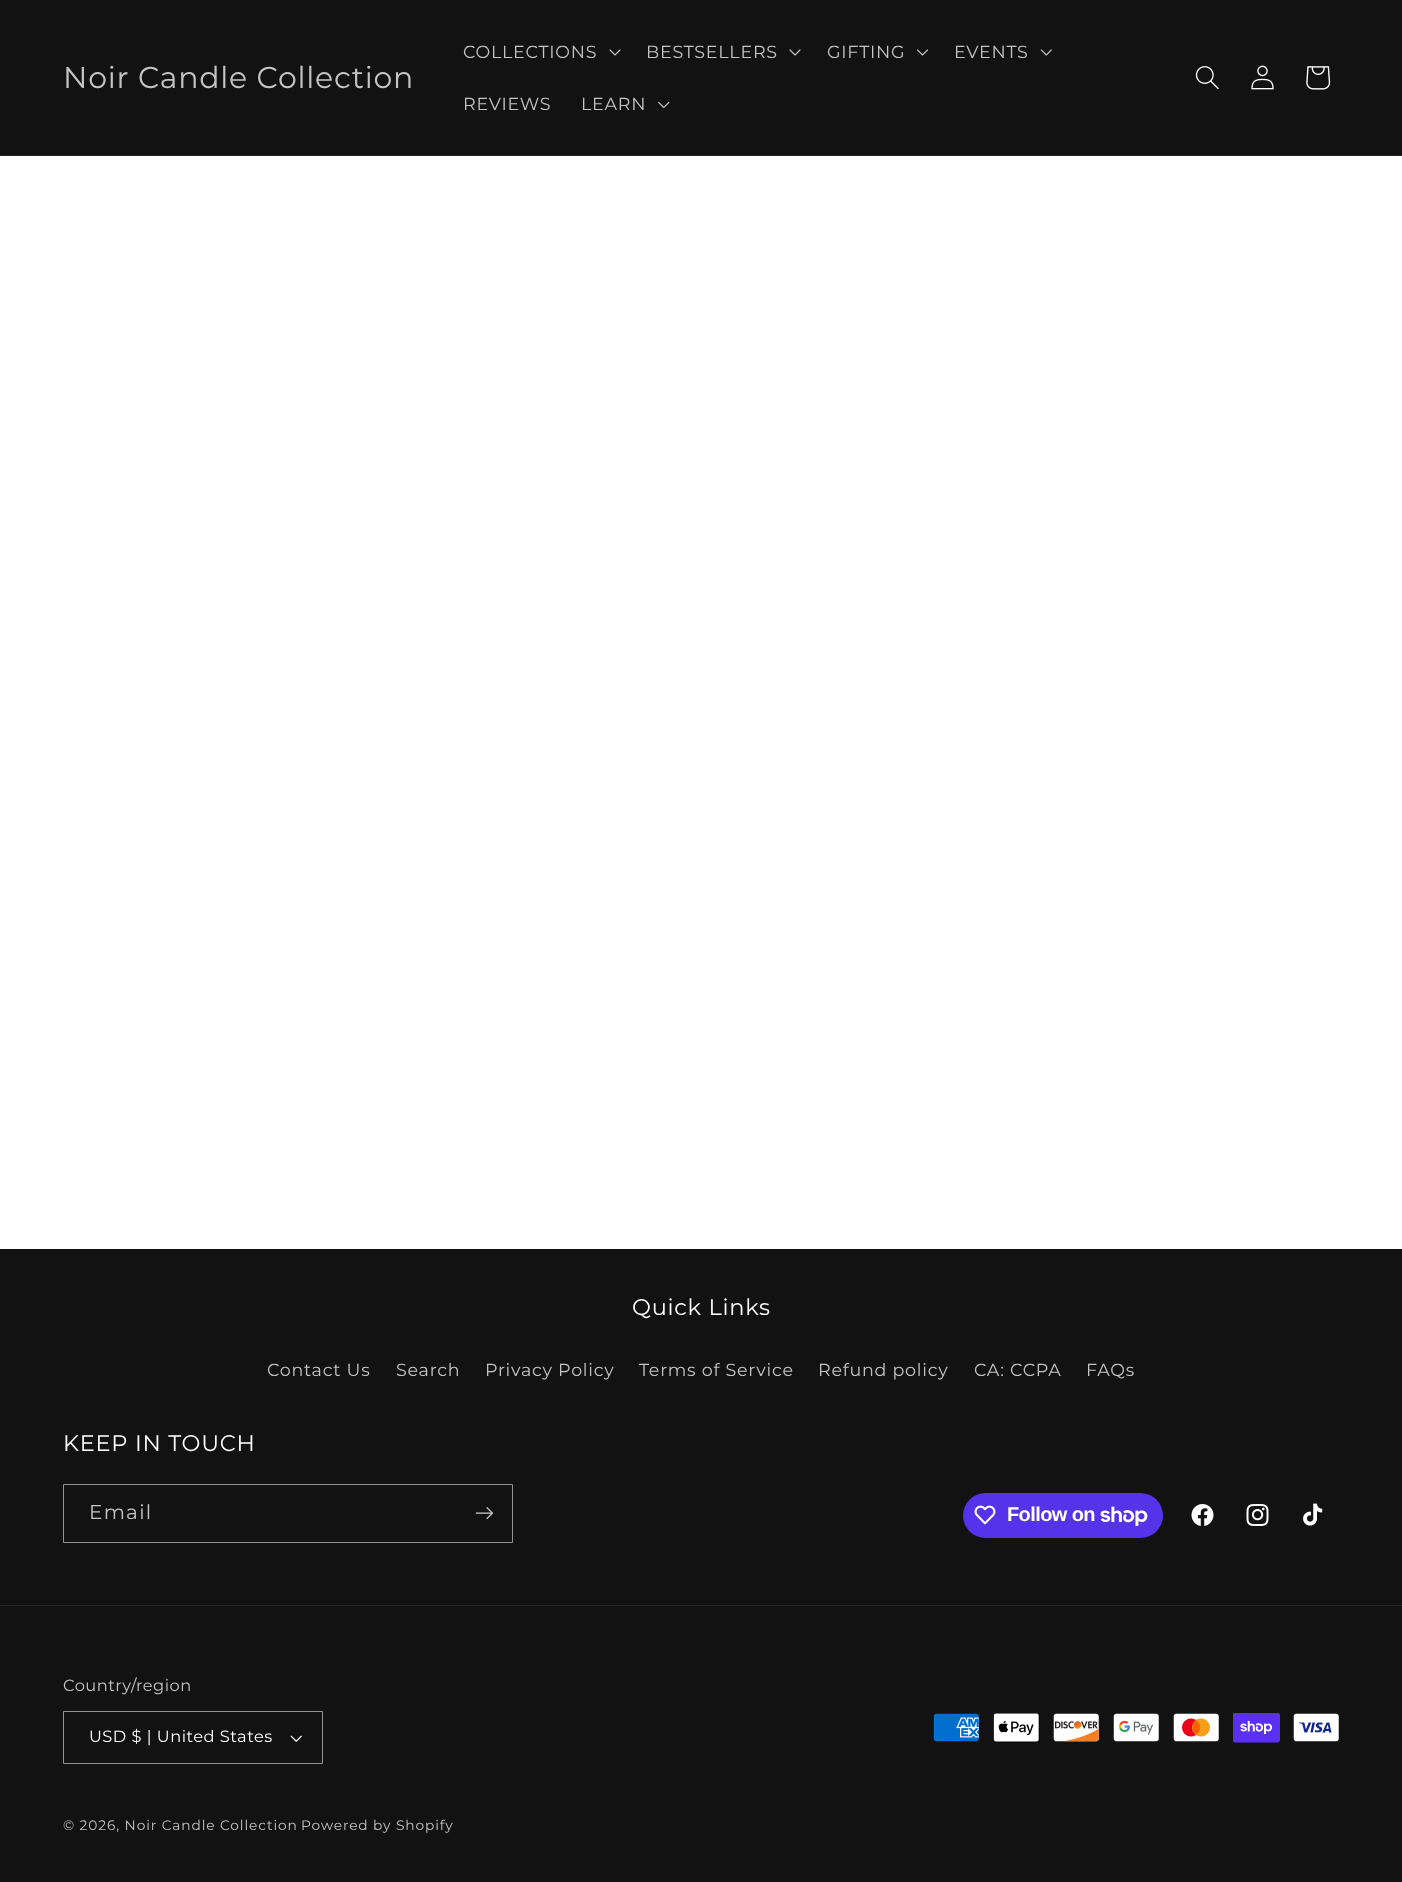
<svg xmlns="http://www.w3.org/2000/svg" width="1402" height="1882">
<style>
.a{font:30px Montserrat;letter-spacing:0.75px;fill:#c4c4c4}
.b{font:17.5px Montserrat;letter-spacing:0.75px;fill:#c4c4c4}
.c{font:22.5px Montserrat;letter-spacing:0.75px;fill:#fff}
.d{font:20px Montserrat;letter-spacing:1.25px;fill:#c4c4c4}
.e{font:bold 20px Liberation Sans;letter-spacing:-0.6px;fill:#fff}
.f{font:16.25px Montserrat;letter-spacing:0.5px;fill:#c4c4c4}
.g{font:16.25px Montserrat;letter-spacing:0.5px;fill:#fff}
.h{font:13.75px Montserrat;letter-spacing:0.9px;fill:#c4c4c4}
</style>
<rect width="100%" height="100%" fill="#fff"/>
<path fill="#121212" d="M0 0h1402v155H0z"/>
<path fill="#252525" d="M0 155h1402v1H0z"/>
<image href="1.png" x="609" y="49" width="12" height="7"/>
<image href="1.png" x="789" y="49" width="12" height="7"/>
<image href="2.png" x="917" y="49" width="11" height="7"/>
<image href="3.png" x="1040" y="49" width="12" height="7"/>
<image href="4.png" x="658" y="101" width="12" height="8"/>
<image href="5.png" x="1195" y="66" width="24" height="24"/>
<image href="6.png" x="1251" y="65" width="23" height="25"/>
<image href="7.png" x="1306" y="66" width="25" height="24"/>
<path fill="#121212" d="M0 1249h1402v633H0z"/>
<path fill="none" stroke="#949494" d="M63.5 1484.5h449v58H63.5z"/>
<image href="8.png" x="475" y="1507" width="18" height="13"/>
<rect fill="#5433eb" x="963" y="1493" width="200" height="45" rx="22.5"/>
<image href="9.png" x="974" y="1505" width="22" height="20"/>
<image href="10.png" x="1100" y="1506" width="48" height="20"/>
<image href="11.png" x="1191" y="1504" width="23" height="22"/>
<image href="12.png" x="1246" y="1504" width="23" height="22"/>
<image href="13.png" x="1303" y="1503" width="20" height="23"/>
<path fill="#252525" d="M0 1605h1402v1H0z"/>
<image href="14.png" x="290" y="1735" width="12" height="7"/>
<path fill="none" stroke="#949494" d="M63.5 1711.5h259v52H63.5z"/>
<image href="15.png" x="933" y="1713" width="46" height="29"/>
<image href="16.png" x="993" y="1713" width="47" height="30"/>
<image href="17.png" x="1053" y="1713" width="46" height="29"/>
<image href="18.png" x="1113" y="1713" width="46" height="29"/>
<image href="19.png" x="1173" y="1713" width="46" height="29"/>
<image href="20.png" x="1233" y="1713" width="47" height="30"/>
<image href="21.png" x="1293" y="1713" width="46" height="29"/>
<text class="a" x="63" y="88">Noir Candle Collection</text>
<text class="b" x="463" y="58">COLLECTIONS</text>
<text class="b" x="646" y="58">BESTSELLERS</text>
<text class="b" x="827" y="58">GIFTING</text>
<text class="b" x="954" y="58">EVENTS</text>
<text class="b" x="463" y="110">REVIEWS</text>
<text class="b" x="581" y="110">LEARN</text>
<text class="c" x="632" y="1315">Quick Links</text>
<text class="b" x="267" y="1376">Contact Us</text>
<text class="b" x="396" y="1376">Search</text>
<text class="b" x="485" y="1376">Privacy Policy</text>
<text class="b" x="639" y="1376">Terms of Service</text>
<text class="b" x="818" y="1376">Refund policy</text>
<text class="b" x="974" y="1376">CA: CCPA</text>
<text class="b" x="1086" y="1376">FAQs</text>
<text class="c" x="63" y="1451">KEEP IN TOUCH</text>
<text class="d" x="89" y="1519">Email</text>
<text class="e" x="1007" y="1521">Follow on</text>
<text class="f" x="63" y="1691">Country/region</text>
<text class="g" x="89" y="1742">USD $ | United States</text>
<text class="h" x="63" y="1830">© 2026, Noir Candle Collection</text>
<text class="h" x="301" y="1830">Powered by Shopify</text>
</svg>
